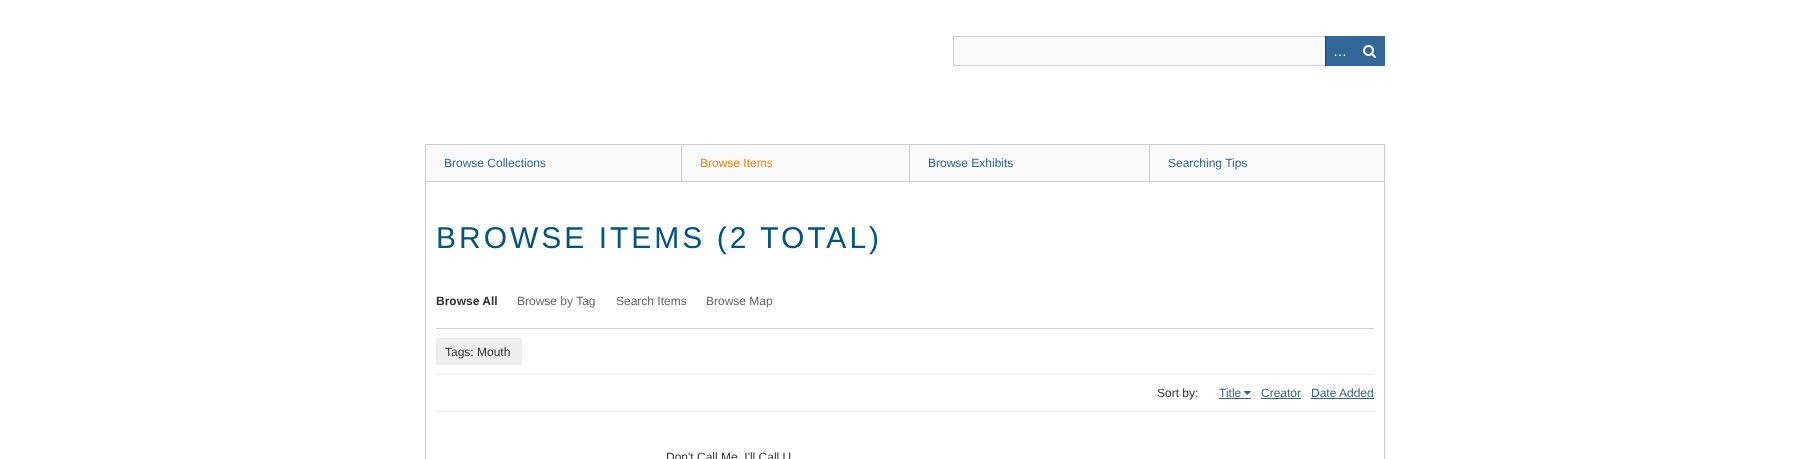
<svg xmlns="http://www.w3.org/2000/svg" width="1809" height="459">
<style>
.a{font:14px Liberation Sans;fill:#fff}
.b{font:12px Liberation Sans;fill:#369}
.c{font:12px Liberation Sans;fill:#ff8000}
.d{font:30px Liberation Sans;letter-spacing:3px;fill:#015581}
.e{font:bold 12px Liberation Sans;fill:#333}
.f{font:12px Liberation Sans;fill:#666}
.g{font:12px Liberation Sans;fill:#333}
</style>
<rect width="100%" height="100%" fill="#fff"/>
<path fill="#fafafa" d="M954 37h371v28H954z"/>
<path fill="none" stroke="#ccc" d="M953.5 36.5h431v29H953.5z"/>
<path fill="#005177" d="M1325 36h1v30H1325z"/>
<path fill="#369" d="M1326 36h59v30H1326z"/>
<image href="1.png" x="1363" y="45" width="13" height="13"/>
<path fill="#ccc" d="M1384 144h1v37H1384z"/>
<path fill="#fafafa" d="M426 145h255v36H426z"/>
<path fill="#ccc" d="M425 144h256v1H425z"/>
<path fill="#ccc" d="M425 144h1v37H425z"/>
<path fill="#fafafa" d="M682 145h227v36H682z"/>
<path fill="#ccc" d="M681 144h703v1H681z"/>
<path fill="#ccc" d="M681 144h1v37H681z"/>
<path fill="#fafafa" d="M910 145h239v36H910z"/>
<path fill="#ccc" d="M909 144h1v37H909z"/>
<path fill="#fafafa" d="M1150 145h234v36H1150z"/>
<path fill="#ccc" d="M1149 144h1v37H1149z"/>
<path fill="none" stroke="#ccc" d="M425.5 181.5h959v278H425.5z"/>
<path fill="#ccc" d="M436 328h938v1H436z"/>
<path fill="#eee" d="M436 374h938v1H436z"/>
<path fill="#eee" d="M436 338h86v27H436z"/>
<path fill="#369" d="M1219 398h32v1H1219z"/>
<image href="2.png" x="1244" y="391" width="7" height="4"/>
<path fill="#369" d="M1261 398h40v1H1261z"/>
<path fill="#369" d="M1311 398h63v1H1311z"/>
<path fill="#eee" d="M436 411h938v1H436z"/>
<text class="a" x="1333" y="56">…</text>
<text class="b" x="444" y="167">Browse Collections</text>
<text class="c" x="700" y="167">Browse Items</text>
<text class="b" x="928" y="167">Browse Exhibits</text>
<text class="b" x="1168" y="167">Searching Tips</text>
<text class="d" x="436" y="248">BROWSE ITEMS (2 TOTAL)</text>
<text class="e" x="436" y="305">Browse All</text>
<text class="f" x="517" y="305">Browse by Tag</text>
<text class="f" x="616" y="305">Search Items</text>
<text class="f" x="706" y="305">Browse Map</text>
<text class="g" x="445" y="356">Tags: Mouth</text>
<text class="g" x="1157" y="397">Sort by:</text>
<text class="b" x="1219" y="397">Title</text>
<text class="b" x="1261" y="397">Creator</text>
<text class="b" x="1311" y="397">Date Added</text>
<text class="g" x="666" y="461">Don't Call Me, I'll Call U</text>
</svg>
